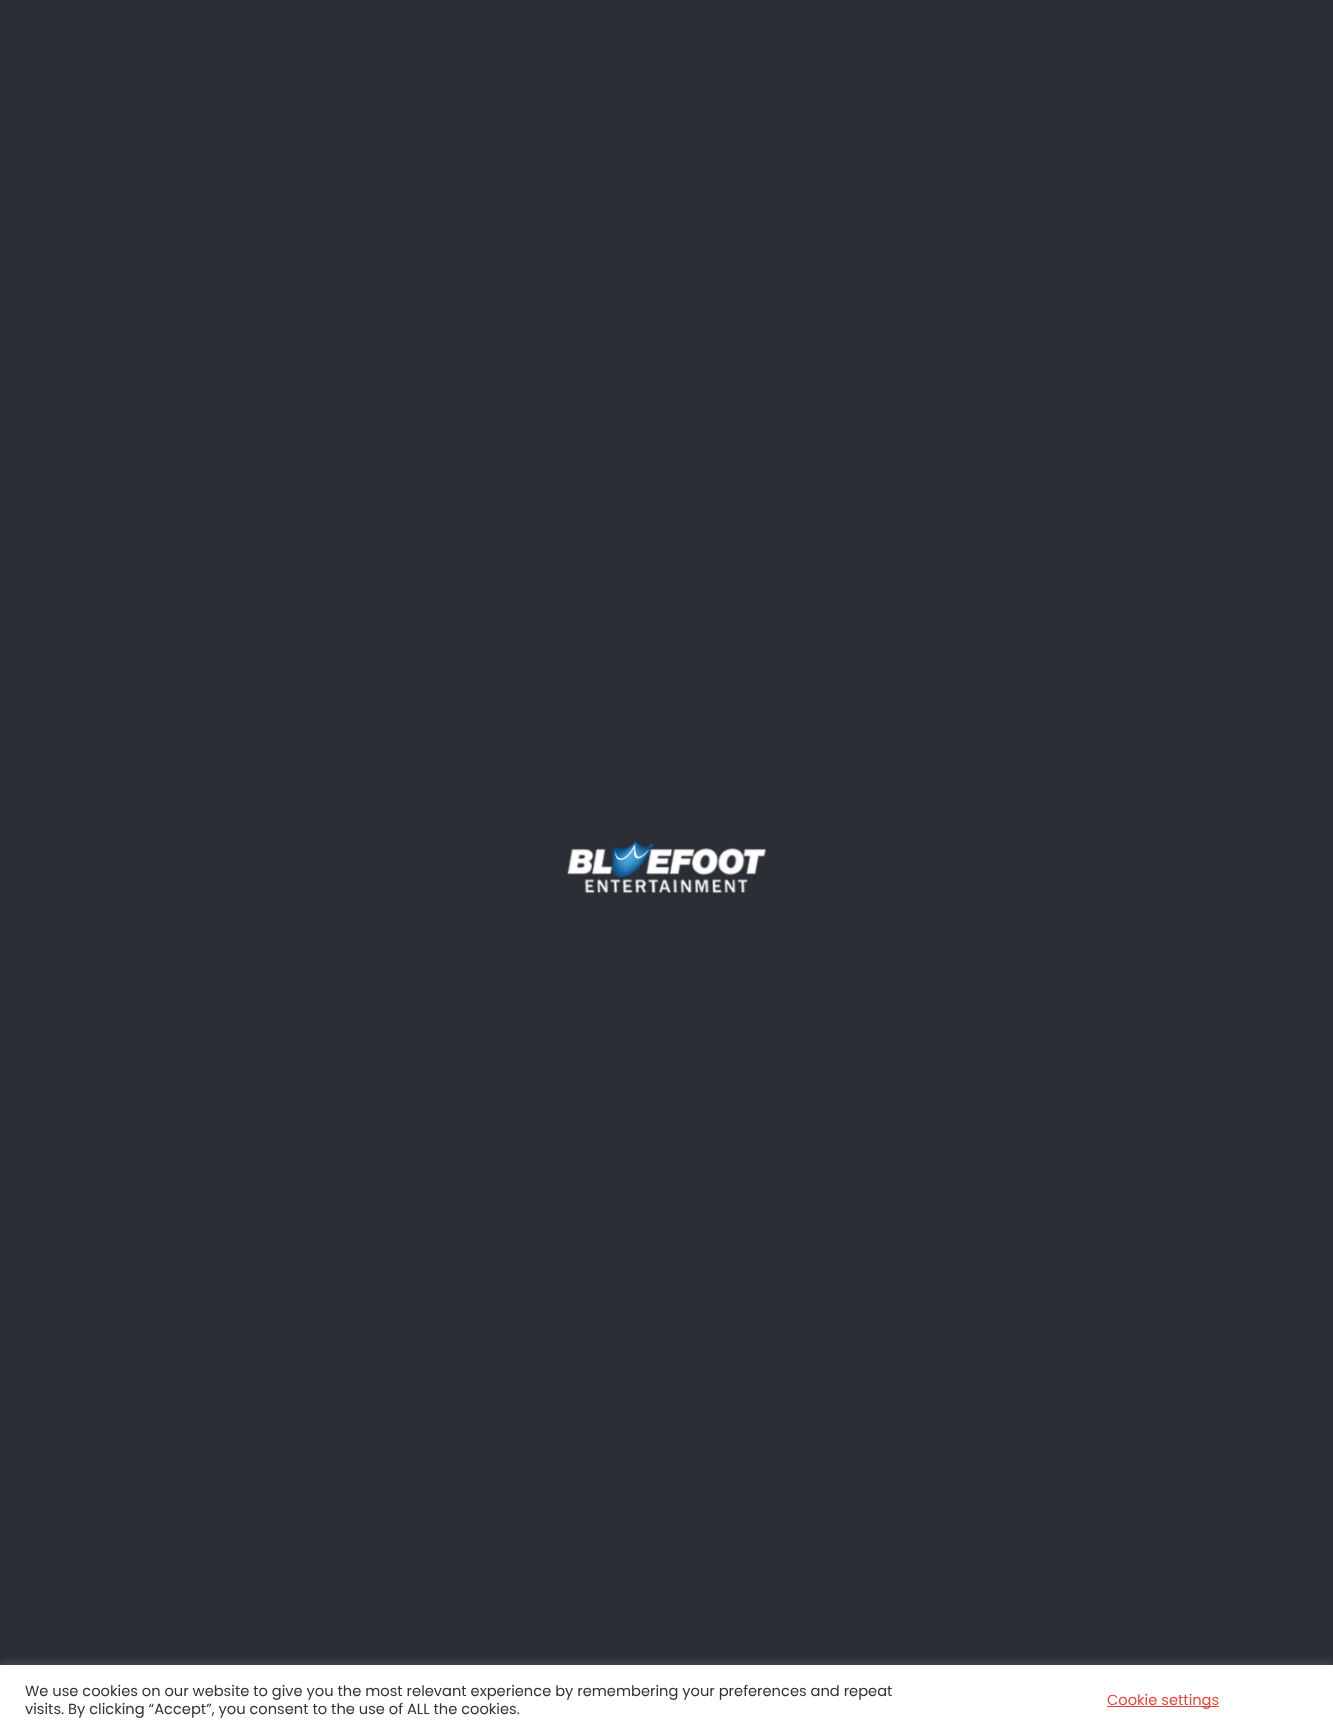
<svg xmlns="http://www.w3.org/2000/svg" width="1333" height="1734">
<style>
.a{font:14.67px Poppins;fill:#333}
.b{font:14.67px Poppins;fill:#dc493a}
</style>
<rect width="100%" height="100%" fill="#2b2f35"/>
<image href="1.png" x="567" y="841" width="199" height="53"/>
<path fill="#acabab4d" filter="blur(5px)" d="M0 1664h1333v69H0z"/>
<path fill="#fff" d="M0 1665h1333v69H0z"/>
<path fill="#dc493a" d="M1107 1706h112v1H1107z"/>
<text class="a" x="25" y="1696">We use cookies on our website to give you the most relevant experience by remembering your preferences and repeat</text>
<text class="a" x="25" y="1714">visits. By clicking “Accept”, you consent to the use of ALL the cookies.</text>
<text class="b" x="1107" y="1705">Cookie settings</text>
</svg>
